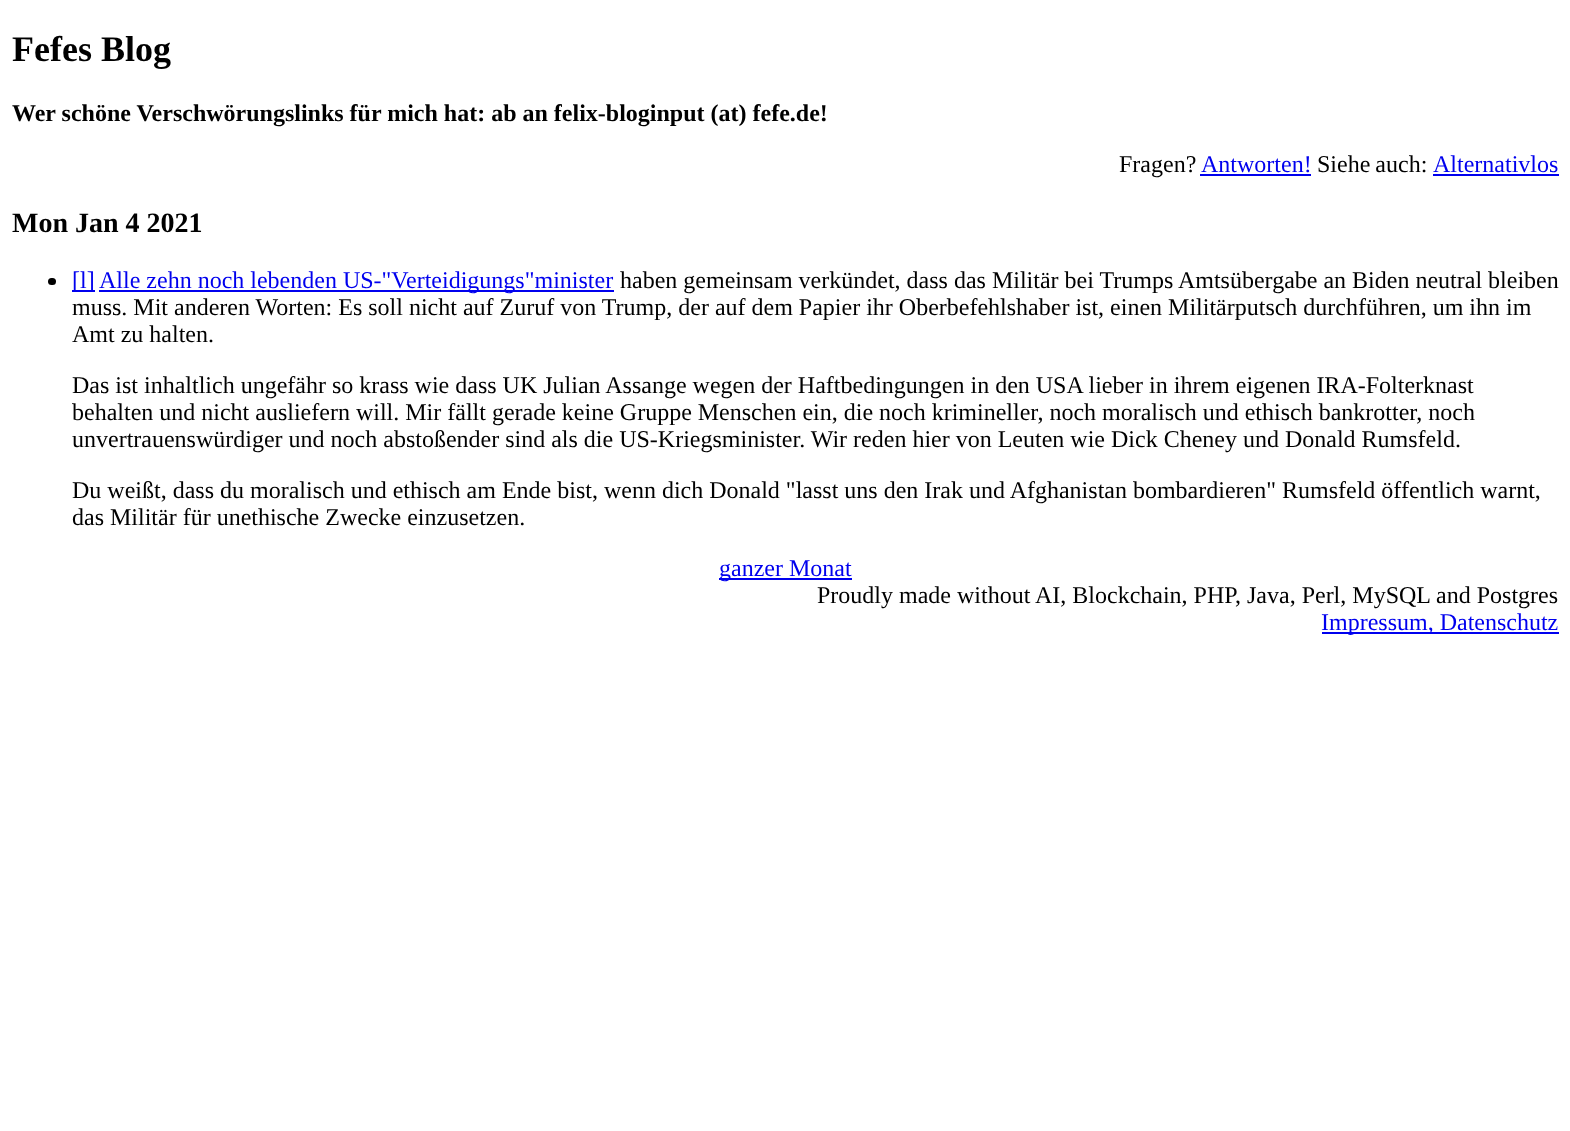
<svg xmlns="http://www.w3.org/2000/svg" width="1570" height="1131">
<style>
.a{font:bold 36px Liberation Serif;fill:#000}
.b{font:bold 24px Liberation Serif;fill:#000}
.c{font:24px Liberation Serif;fill:#000}
.d{font:24px Liberation Serif;fill:#00e}
.e{font:bold 28px Liberation Serif;fill:#000}
</style>
<rect width="100%" height="100%" fill="#fff"/>
<path fill="#00e" d="M1200 174h111v2H1200z"/>
<path fill="#00e" d="M1433 174h126v2H1433z"/>
<rect fill="#000" x="48" y="278" width="8" height="7" rx="3.5"/>
<path fill="#00e" d="M72 290h23v2H72z"/>
<path fill="#00e" d="M99 290h515v2H99z"/>
<path fill="#00e" d="M719 578h133v2H719z"/>
<path fill="#00e" d="M1322 632h237v2H1322z"/>
<text class="a" x="12" y="61">Fefes Blog</text>
<text class="b" x="12" y="121">Wer schöne Verschwörungslinks für mich hat: ab an felix-bloginput (at) fefe.de!</text>
<text class="c" x="1119" y="172">Fragen?</text>
<text class="d" x="1201" y="172">Antworten!</text>
<text class="c" x="1317" y="172" word-spacing="-1">Siehe auch:</text>
<text class="d" x="1433" y="172">Alternativlos</text>
<text class="e" x="12" y="232">Mon Jan 4 2021</text>
<text class="d" x="72" y="288">[l]</text>
<text class="d" x="99" y="288">Alle zehn noch lebenden US-"Verteidigungs"minister</text>
<text class="c" x="620" y="288">haben gemeinsam verkündet, dass das Militär bei Trumps Amtsübergabe an Biden neutral bleiben</text>
<text class="c" x="72" y="315">muss. Mit anderen Worten: Es soll nicht auf Zuruf von Trump, der auf dem Papier ihr Oberbefehlshaber ist, einen Militärputsch durchführen, um ihn im</text>
<text class="c" x="72" y="342">Amt zu halten.</text>
<text class="c" x="72" y="393">Das ist inhaltlich ungefähr so krass wie dass UK Julian Assange wegen der Haftbedingungen in den USA lieber in ihrem eigenen IRA-Folterknast</text>
<text class="c" x="72" y="420">behalten und nicht ausliefern will. Mir fällt gerade keine Gruppe Menschen ein, die noch krimineller, noch moralisch und ethisch bankrotter, noch</text>
<text class="c" x="72" y="447">unvertrauenswürdiger und noch abstoßender sind als die US-Kriegsminister. Wir reden hier von Leuten wie Dick Cheney und Donald Rumsfeld.</text>
<text class="c" x="72" y="498">Du weißt, dass du moralisch und ethisch am Ende bist, wenn dich Donald "lasst uns den Irak und Afghanistan bombardieren" Rumsfeld öffentlich warnt,</text>
<text class="c" x="72" y="525">das Militär für unethische Zwecke einzusetzen.</text>
<text class="d" x="719" y="576">ganzer Monat</text>
<text class="c" x="817" y="603">Proudly made without AI, Blockchain, PHP, Java, Perl, MySQL and Postgres</text>
<text class="d" x="1321" y="630">Impressum, Datenschutz</text>
</svg>
